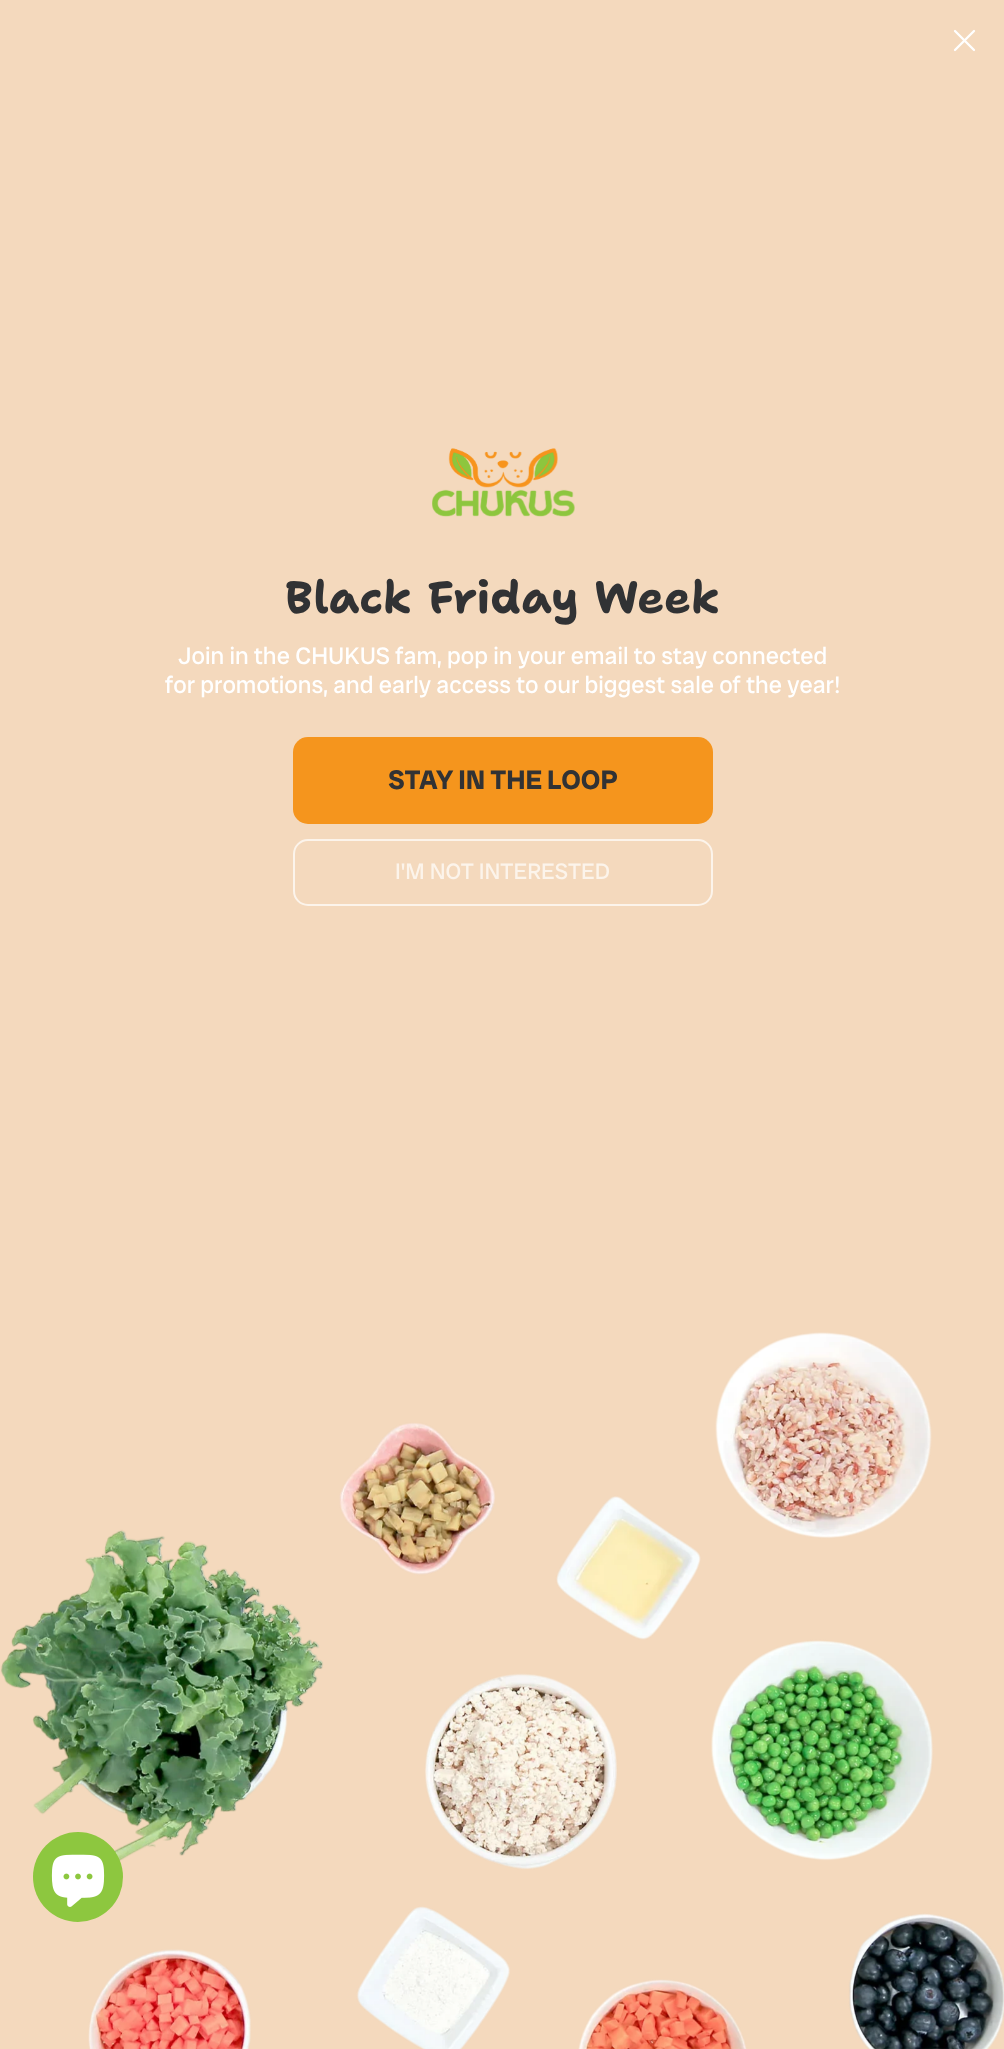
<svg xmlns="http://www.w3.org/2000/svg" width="1004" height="2049">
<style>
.a{font:300 45px Shantell Sans;fill:#313234}
.b{font:24px Radio Canada Big;fill:#fff}
.c{font:bold 27px Radio Canada Big;fill:#313234}
.d{font:22.5px Radio Canada Big;fill:#fcf4eb}
</style>
<rect width="100%" height="100%" fill="#f4d9bd"/>
<path fill="none" stroke="#fff" stroke-width="2.3" stroke-linecap="round" d="M955 31l19 19m0-19l-19 19"/>
<image href="1.png" x="432" y="448" width="143" height="69"/>
<rect fill="#f5951d" x="293" y="737" width="420" height="87" rx="15"/>
<rect fill="none" stroke="#fcf4eb" stroke-width="2" x="294" y="840" width="418" height="65" rx="14"/>
<image href="2.png" x="0" y="1332" width="1004" height="717"/>
<circle fill="#8dc73f" cx="78" cy="1877" r="45"/>
<image href="3.png" x="51" y="1854" width="54" height="53"/>
<text class="a" x="285" y="613">Black Friday Week</text>
<text class="b" x="178" y="664">Join in the CHUKUS fam, pop in your email to stay connected</text>
<text class="b" x="165" y="693">for promotions, and early access to our biggest sale of the year!</text>
<text class="c" x="388" y="789">STAY IN THE LOOP</text>
<text class="d" x="395" y="879">I'M NOT INTERESTED</text>
</svg>
